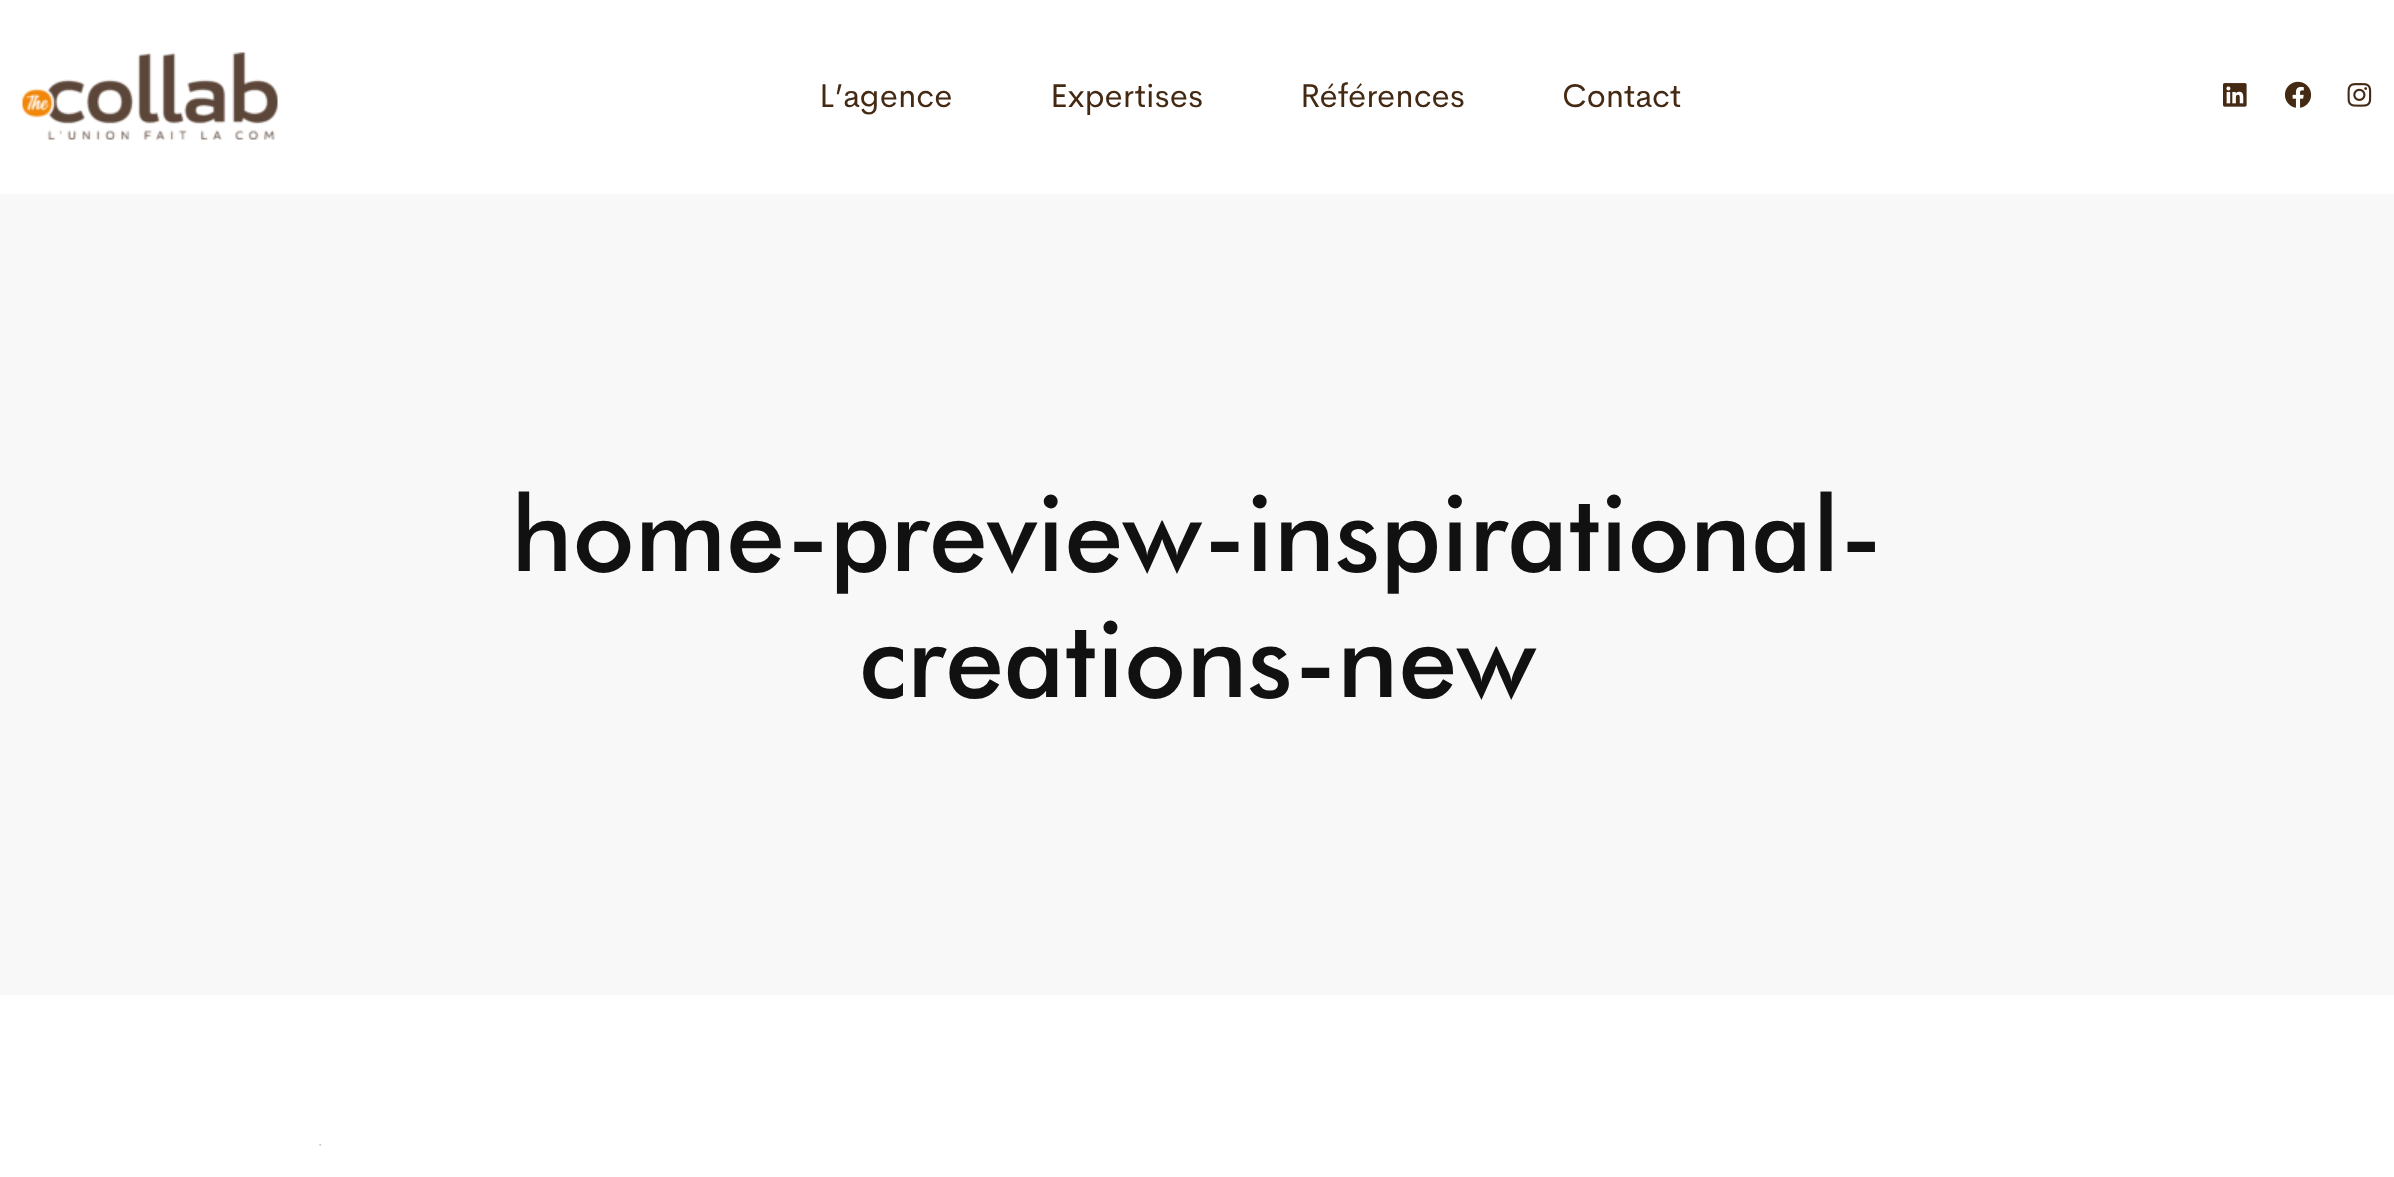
<svg xmlns="http://www.w3.org/2000/svg" width="2394" height="1177">
<style>
.a{font:33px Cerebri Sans;fill:#442913}
.b{font:500 105px Futura;fill:#111}
</style>
<rect width="100%" height="100%" fill="#fff"/>
<image href="1.png" x="22" y="52" width="256" height="88"/>
<image href="2.png" x="2223" y="83" width="24" height="24"/>
<image href="3.png" x="2284" y="81" width="28" height="27"/>
<image href="4.png" x="2347" y="83" width="25" height="24"/>
<path fill="#f8f8f8" d="M0 194h2394v801H0z"/>
<image href="5.png" x="319" y="1144" width="2" height="2"/>
<text class="a" x="819" y="107">L’agence</text>
<text class="a" x="1050" y="107">Expertises</text>
<text class="a" x="1300" y="107">Références</text>
<text class="a" x="1562" y="107">Contact</text>
<text class="b" x="511" y="571">home-preview-inspirational-</text>
<text class="b" x="859" y="697">creations-new</text>
</svg>
